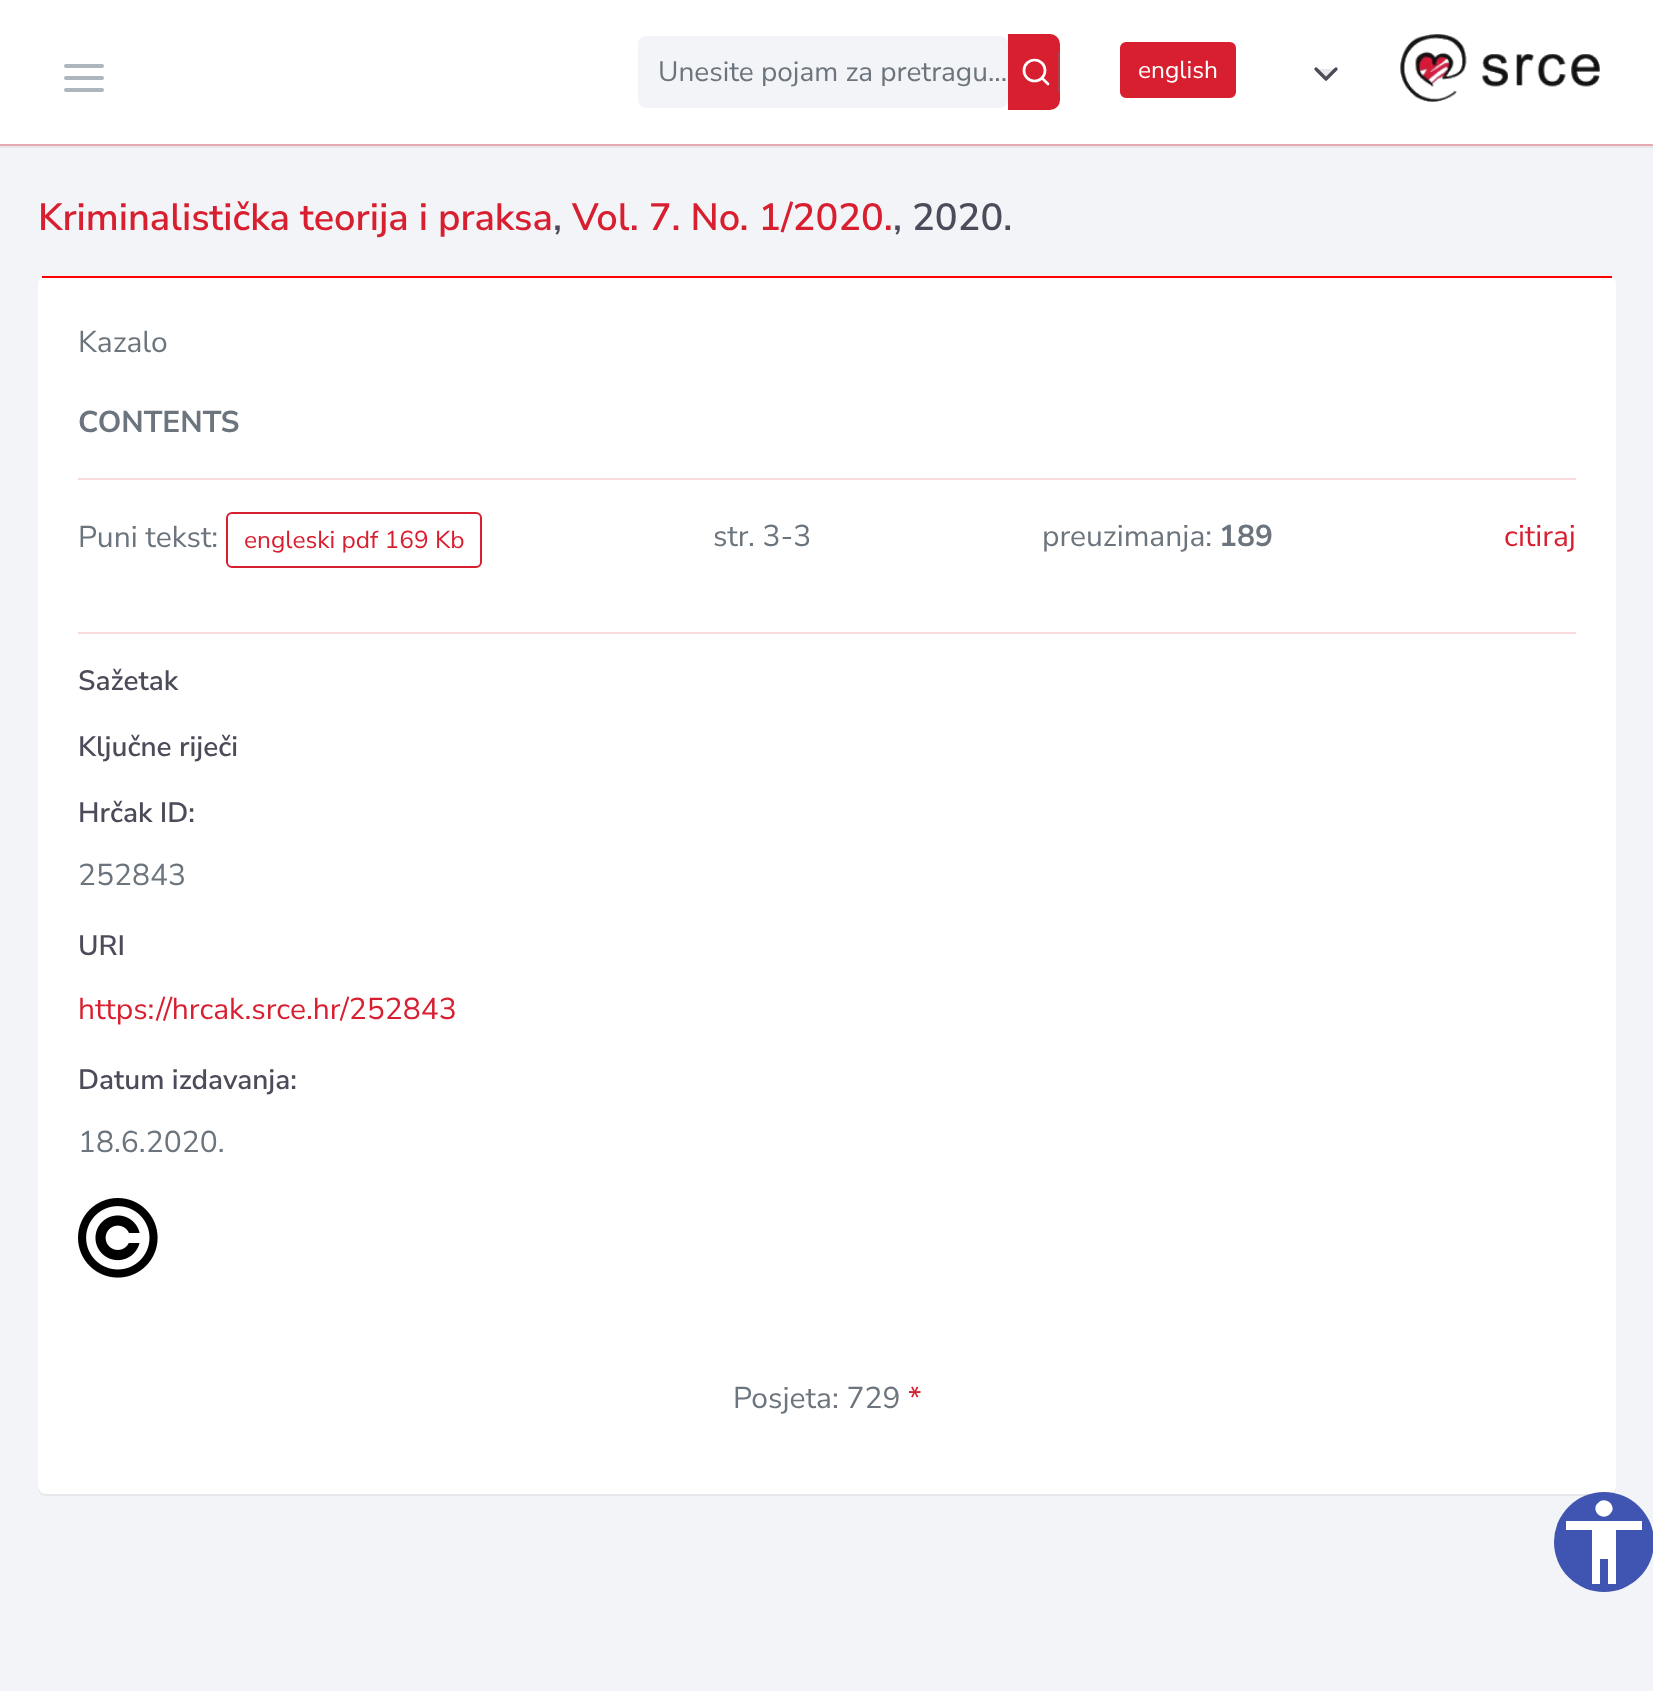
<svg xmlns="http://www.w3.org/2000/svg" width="1653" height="1691">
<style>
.a{font:28px Nunito Sans;fill:#6c757d}
.b{font:24.5px Nunito Sans;fill:#fff}
.c{font:600 38px Nunito Sans;fill:#d81f30}
.d{font:600 38px Nunito Sans;fill:#4b4b5a}
.e{font:30px Nunito Sans;fill:#6c757d}
.f{font:bold 30px Nunito Sans;fill:#6c757d}
.g{font:24.5px Nunito Sans;fill:#d81f30}
.h{font:30px Nunito Sans;fill:#d81f30}
.i{font:600 28px Nunito Sans;fill:#4b4b5a}
</style>
<rect width="100%" height="100%" fill="#f3f4f7"/>
<path fill="#4b4b5a12" filter="blur(0.5px)" d="M0 146h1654v2H0z"/>
<path fill="#f1b1b6" d="M0 144h1653v2H0z"/>
<path fill="#4b4b5a12" filter="blur(0.5px)" d="M0 2h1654v144H0z"/>
<path fill="#fff" d="M0 0h1653v144H0z"/>
<path fill="none" stroke="#adb5bd" stroke-width="4" stroke-linecap="round" stroke-linejoin="round" d="M66 78h36m-36-12h36m-36 24h36"/>
<rect fill="#f3f4f7" x="638" y="36" width="370" height="72" rx="8"/>
<path fill="#d81f30" stroke="#d81f30" stroke-width="2" d="M1009 35h41c5 0 9 4 9 9v56c0 5-4 9-9 9h-41z"/>
<path fill="#ae4350" d="M1058 52h2v40H1058z"/>
<circle fill="none" stroke="#fff" stroke-width="2.7" cx="1034.5" cy="70.5" r="10.5"/>
<path fill="none" stroke="#fff" stroke-width="2.7" stroke-linecap="round" stroke-linejoin="round" d="M1048 84l-6-6"/>
<rect fill="#d81f30" stroke="#d81f30" stroke-width="2" x="1121" y="43" width="114" height="54" rx="5"/>
<path fill="#e9e9eb" stroke="#4b4b5a" stroke-width="3.3" stroke-linecap="round" stroke-linejoin="round" d="M1316 69l10 10l10-10"/>
<image href="1.png" x="1400" y="34" width="200" height="68"/>
<rect fill="#4b4b5a12" filter="blur(0.5px)" x="38" y="278" width="1578" height="1218" rx="8"/>
<rect fill="#fff" x="38" y="276" width="1578" height="1218" rx="8"/>
<path fill="#f00" d="M42 276h1570v2H42z"/>
<path fill="#f8d9dc" d="M78 478h1498v2H78z"/>
<rect fill="none" stroke="#d81f30" stroke-width="2" x="227" y="513" width="254" height="54" rx="5"/>
<path fill="#f8d9dc" d="M78 632h1498v2H78z"/>
<image href="2.png" x="78" y="1198" width="80" height="80"/>
<circle fill="#4054b2" cx="1604" cy="1542" r="50"/>
<path fill="#fff" d="M1642 1530h-26v54h-8v-25h-8v25h-8v-54h-26v-9h76zm-44-27c8-8 20 4 12 11c-8 8-20-4-12-11z"/>
<text class="a" x="658" y="81">Unesite pojam za pretragu...</text>
<text class="b" x="1138" y="78">english</text>
<text class="c" x="38" y="230">Kriminalistička teorija i praksa</text>
<text class="d" x="553" y="230">,</text>
<text class="c" x="572" y="230">Vol. 7. No. 1/2020.</text>
<text class="d" x="893" y="230">, 2020.</text>
<text class="e" x="78" y="352">Kazalo</text>
<text class="f" x="78" y="432">CONTENTS</text>
<text class="e" x="78" y="547">Puni tekst:</text>
<text class="g" x="244" y="548">engleski pdf 169 Kb</text>
<text class="e" x="713" y="546">str. 3-3</text>
<text class="e" x="1042" y="546">preuzimanja:</text>
<text class="f" x="1219" y="546">189</text>
<text class="h" x="1504" y="546">citiraj</text>
<text class="i" x="78" y="690">Sažetak</text>
<text class="i" x="78" y="756">Ključne riječi</text>
<text class="i" x="78" y="822">Hrčak ID:</text>
<text class="e" x="78" y="885">252843</text>
<text class="i" x="78" y="955">URI</text>
<text class="h" x="78" y="1019">https://hrcak.srce.hr/252843</text>
<text class="i" x="78" y="1089">Datum izdavanja:</text>
<text class="e" x="78" y="1152">18.6.2020.</text>
<text class="e" x="733" y="1408">Posjeta: 729</text>
<text class="h" x="908" y="1408">*</text>
</svg>
